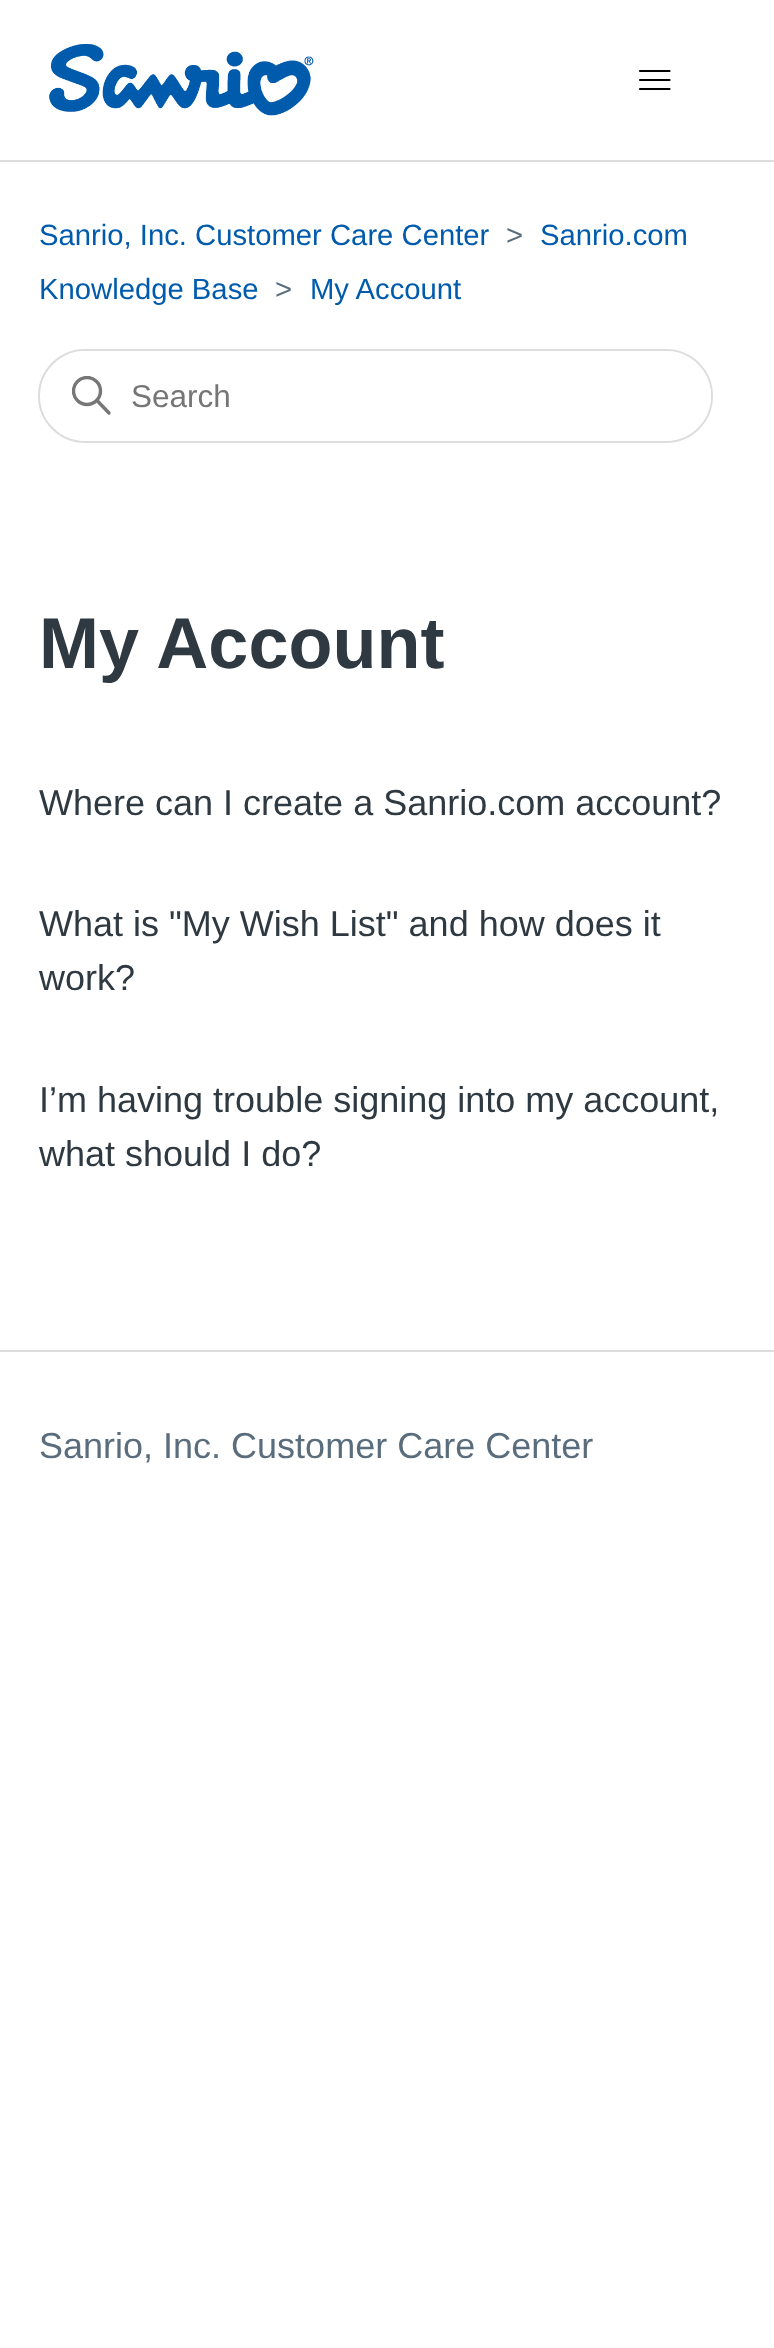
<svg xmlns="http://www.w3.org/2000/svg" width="774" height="2348">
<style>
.a{font:29.25px Liberation Sans;fill:#005bac}
.b{font:29.25px Liberation Sans;fill:#5a6d7c}
.c{font:31.5px Liberation Sans;fill:#757575}
.d{font:bold 72px Liberation Sans;fill:#2f3941}
.e{font:36px Liberation Sans;fill:#2f3941}
.f{font:36px Liberation Sans;fill:#5a6d7c}
</style>
<defs>
<clipPath id="clip1"><path d="M72 376h41v40H72z"/></clipPath>
</defs>
<rect width="100%" height="100%" fill="#fff"/>
<image href="1.png" x="49" y="44" width="265" height="72"/>
<path fill="none" stroke="#000" stroke-width="2.2" stroke-linecap="round" d="M640 71h29.5m-29.5 9h29.5m-29.5 9h29.5"/>
<path fill="#ddd" d="M0 160h774v2H0z"/>
<rect fill="none" stroke="#ddd" stroke-width="2" x="39" y="350" width="673" height="92" rx="46"/>
<rect fill="#fff" x="41" y="351" width="670" height="90" rx="45"/>
<g clip-path="url(#clip1)">
<circle fill="none" stroke="#777" stroke-width="3.4" cx="87" cy="391" r="13.5"/>
</g>
<path fill="none" stroke="#777" stroke-width="3.4" stroke-linecap="round" d="M109 413l-11.5-12"/>
<path fill="#ddd" d="M0 1350h774v2H0z"/>
<text class="a" x="39" y="245">Sanrio, Inc. Customer Care Center</text>
<text class="b" x="506" y="245">&gt;</text>
<text class="a" x="540" y="245">Sanrio.com</text>
<text class="a" x="39" y="299">Knowledge Base</text>
<text class="b" x="275" y="299">&gt;</text>
<text class="a" x="310" y="299">My Account</text>
<text class="c" x="131" y="407">Search</text>
<text class="d" x="39" y="668">My Account</text>
<text class="e" x="39" y="815">Where can I create a Sanrio.com account?</text>
<text class="e" x="39" y="936">What is "My Wish List" and how does it</text>
<text class="e" x="39" y="990">work?</text>
<text class="e" x="39" y="1112">I’m having trouble signing into my account,</text>
<text class="e" x="39" y="1166">what should I do?</text>
<text class="f" x="39" y="1458">Sanrio, Inc. Customer Care Center</text>
</svg>
